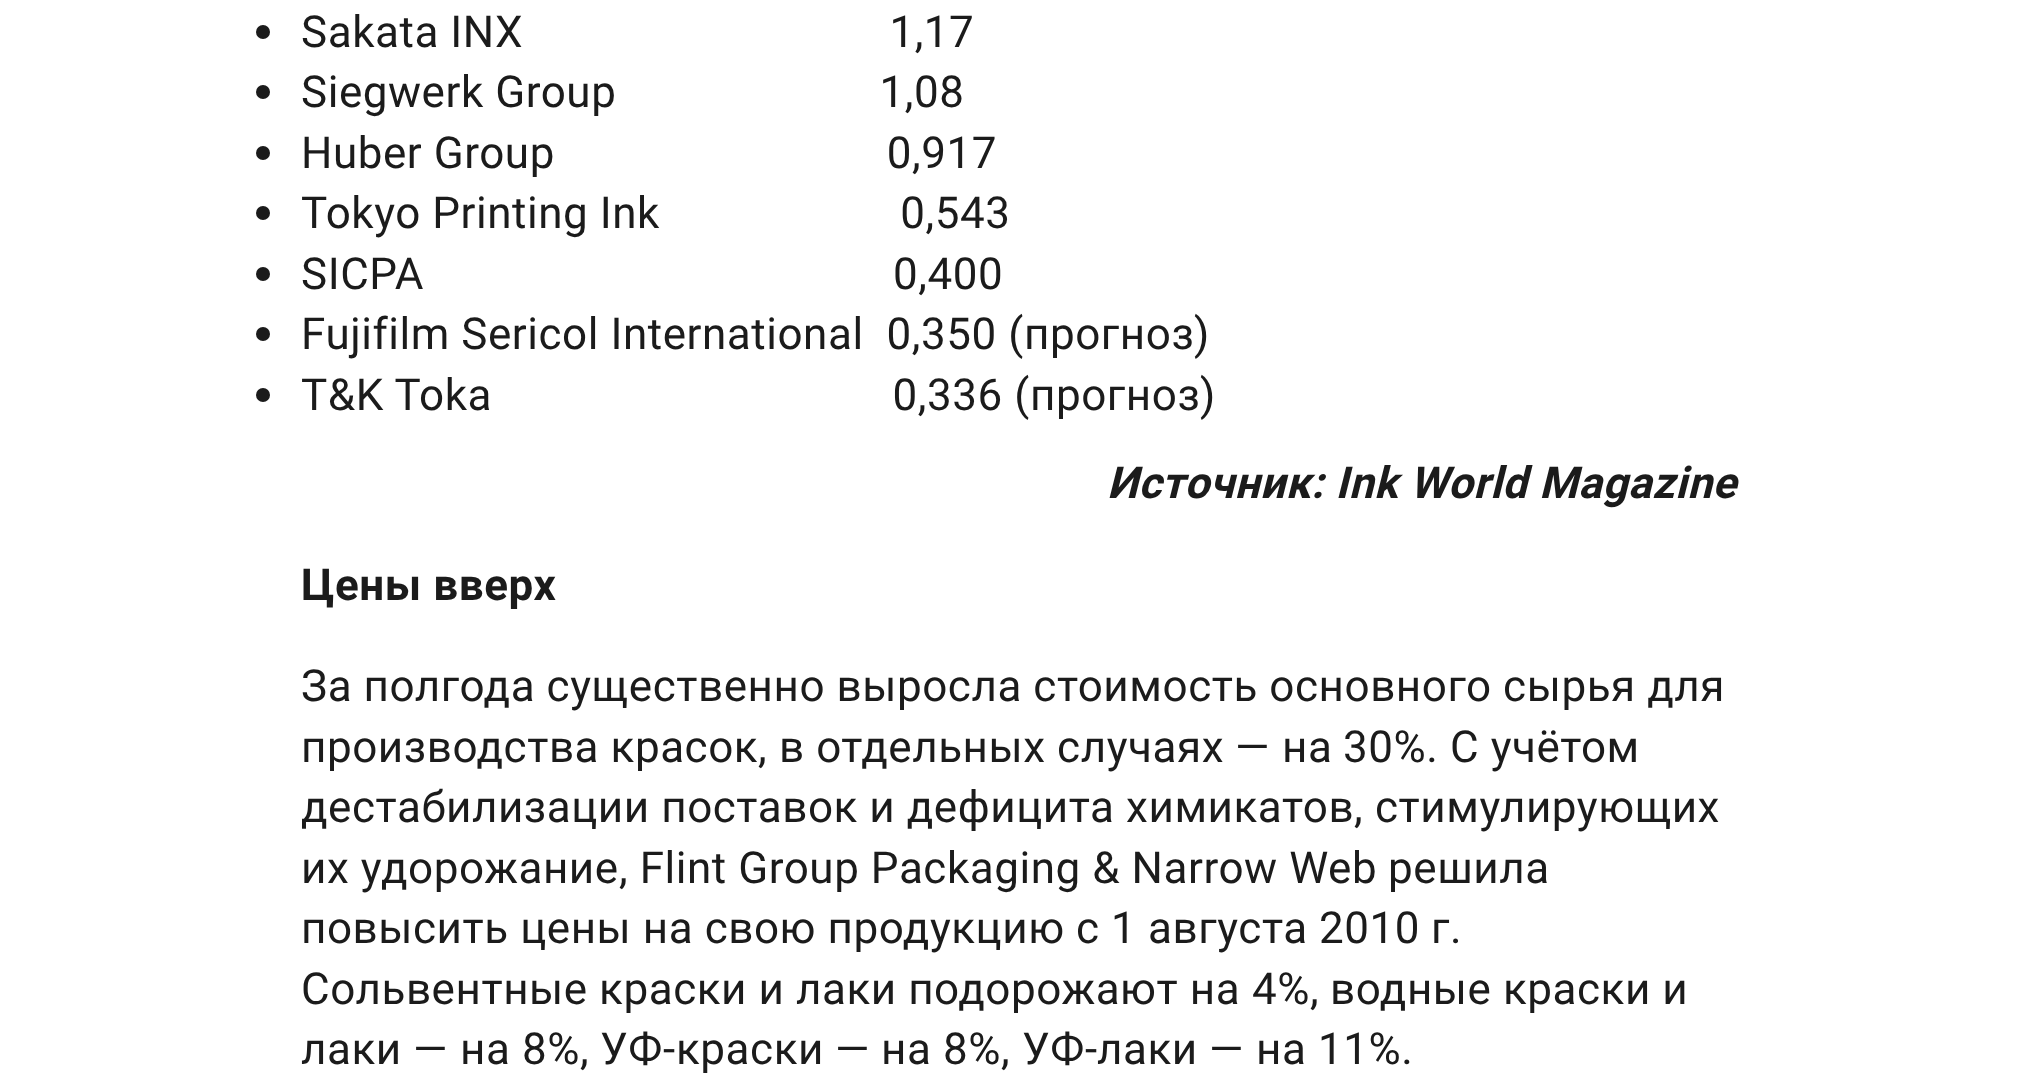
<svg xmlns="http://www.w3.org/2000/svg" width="2037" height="1085">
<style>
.a{font:44px Roboto;letter-spacing:0.55px;fill:#1b1b1b}
.b{font:44px 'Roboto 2';letter-spacing:0.55px;fill:#1b1b1b}
.c{font:italic bold 44px Roboto;letter-spacing:0.55px;fill:#1b1b1b}
.d{font:bold 44px Roboto;letter-spacing:0.55px;fill:#1b1b1b}
</style>
<rect width="100%" height="100%" fill="#fff"/>
<circle fill="#1b1b1b" cx="263" cy="32" r="7"/>
<circle fill="#1b1b1b" cx="263" cy="92" r="7"/>
<circle fill="#1b1b1b" cx="263" cy="153" r="7"/>
<circle fill="#1b1b1b" cx="263" cy="213" r="7"/>
<circle fill="#1b1b1b" cx="263" cy="274" r="7"/>
<circle fill="#1b1b1b" cx="263" cy="334" r="7"/>
<circle fill="#1b1b1b" cx="263" cy="395" r="7"/>
<text class="a" xml:space="preserve" x="301" y="47">Sakata INX                                1,17</text>
<text class="a" xml:space="preserve" x="301" y="107">Siegwerk Group                       1,08</text>
<text class="a" xml:space="preserve" x="301" y="168">Huber Group                             0,917</text>
<text class="a" xml:space="preserve" x="301" y="228">Tokyo Printing Ink                     0,543</text>
<text class="a" xml:space="preserve" x="301" y="289">SICPA                                         0,400</text>
<text class="a" xml:space="preserve" x="301" y="349">Fujifilm Sericol International  0,350 (</text>
<text class="b" x="1024" y="349">прогноз</text>
<text class="a" x="1194" y="349">)</text>
<text class="a" xml:space="preserve" x="301" y="410">T&amp;K Toka                                   0,336 (</text>
<text class="b" x="1030" y="410">прогноз</text>
<text class="a" x="1200" y="410">)</text>
<text class="c" x="1107" y="498">Источник: Ink World Magazine</text>
<text class="d" x="301" y="600">Цены вверх</text>
<text class="b" x="301" y="701">За полгода существенно выросла стоимость основного сырья для</text>
<text class="b" x="301" y="762">производства красок</text>
<text class="b" x="779" y="762">в отдельных случаях</text>
<text class="a" x="1235" y="762">—</text>
<text class="b" x="1282" y="762">на</text>
<text class="a" x="1343" y="762">30%.</text>
<text class="b" x="1450" y="762">С учётом</text>
<text class="a" x="758" y="762">,</text>
<text class="b" x="301" y="822">дестабилизации поставок и дефицита химикатов</text>
<text class="a" x="1354" y="822">,</text>
<text class="b" x="1375" y="822">стимулирующих</text>
<text class="b" x="301" y="883">их удорожание</text>
<text class="a" x="619" y="883">, Flint Group Packaging &amp; Narrow Web</text>
<text class="b" x="1388" y="883">решила</text>
<text class="b" x="301" y="943">повысить цены на свою продукцию с</text>
<text class="a" x="1111" y="943">1</text>
<text class="b" x="1148" y="943">августа</text>
<text class="a" x="1319" y="943">2010</text>
<text class="b" x="1431" y="943">г</text>
<text class="a" x="1450" y="943">.</text>
<text class="b" x="301" y="1004">Сольвентные краски и лаки подорожают на</text>
<text class="a" x="1252" y="1004">4%,</text>
<text class="b" x="1330" y="1004">водные краски и</text>
<text class="b" x="301" y="1064">лаки</text>
<text class="a" x="413" y="1064">—</text>
<text class="b" x="460" y="1064">на</text>
<text class="a" x="522" y="1064">8%,</text>
<text class="b" x="600" y="1064">УФ</text>
<text class="a" x="663" y="1064">-</text>
<text class="b" x="676" y="1064">краски</text>
<text class="a" x="835" y="1064">—</text>
<text class="b" x="881" y="1064">на</text>
<text class="a" x="943" y="1064">8%,</text>
<text class="b" x="1022" y="1064">УФ</text>
<text class="a" x="1085" y="1064">-</text>
<text class="b" x="1097" y="1064">лаки</text>
<text class="a" x="1209" y="1064">—</text>
<text class="b" x="1256" y="1064">на</text>
<text class="a" x="1318" y="1064">11%.</text>
</svg>
